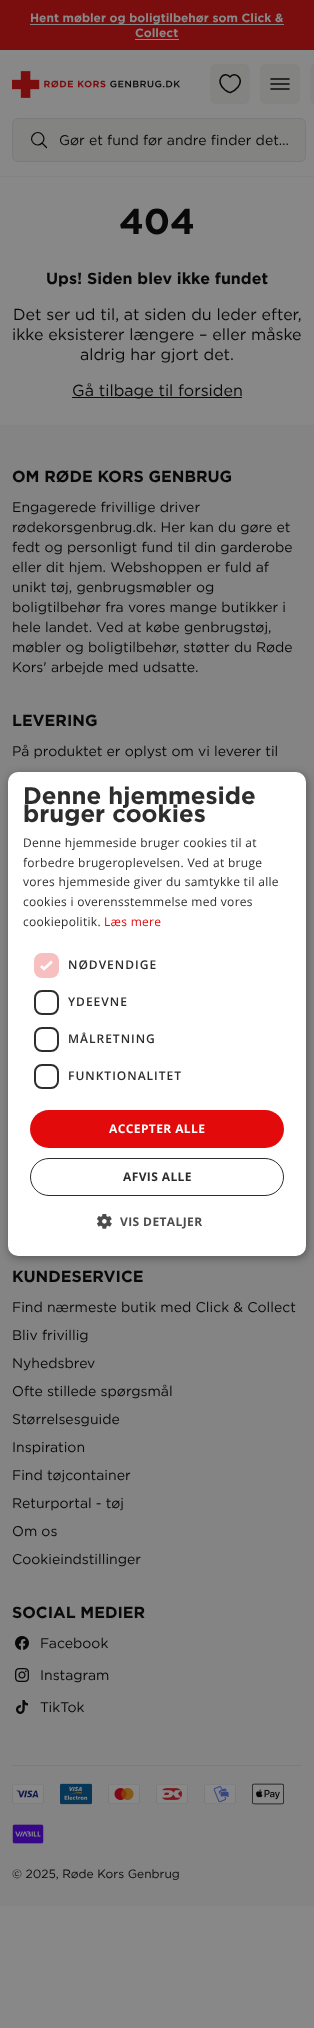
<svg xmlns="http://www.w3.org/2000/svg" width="314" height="2028">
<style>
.a{font:bold 12px Gotham;fill:#888}
.b{font:14px Gotham;fill:#090909}
.c{font:bold 36px Gotham;fill:#090909}
.d{font:bold 16px Gotham;fill:#090909}
.e{font:16px Gotham;fill:#090909}
.f{font:bold 24px Gotham;fill:#2d2d2d}
.g{font:12px Open Sans;letter-spacing:0.3px;fill:#2d2d2d}
.h{font:12px Open Sans;letter-spacing:0.3px;fill:#e30a0b}
.i{font:600 12px Open Sans;letter-spacing:1px;fill:#2d2d2d}
.j{font:bold 12px Open Sans;letter-spacing:0.4px;fill:#fff}
.k{font:bold 12px Open Sans;letter-spacing:0.4px;fill:#2d2d2d}
.l{font:bold 12px Open Sans;letter-spacing:0.4px;fill:#4d4d4d}
.m{font:12px Gotham;fill:#090909}
</style>
<rect width="100%" height="100%" fill="#888"/>
<path fill="#7a0e0e" d="M0 0h314v50H0z"/>
<path fill="#888" d="M30 24h254v1H30z"/>
<path fill="#888" d="M135 39h44v1H135z"/>
<path fill="#838383" d="M0 176h314v1H0z"/>
<image href="1.png" x="12" y="71" width="168" height="27"/>
<rect fill="#838382" x="210" y="64" width="40" height="40" rx="6"/>
<path fill="none" stroke="#090909" stroke-width="1.5" stroke-linecap="round" stroke-linejoin="round" d="M230.5 92.5c-1.5 .5-4-1.5-5.5-2.5c-11.5-9.5-.5-20 5-13c4.5-6 14.5 1 8 10c-2 2.5-4.5 4.5-7.5 5.5z"/>
<rect fill="#838382" x="260" y="64" width="40" height="40" rx="6"/>
<image href="2.png" x="270" y="78" width="20" height="12"/>
<rect fill="#838382" x="310" y="64" width="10" height="40" rx="6"/>
<rect fill="#838382" stroke="#7c7b7c" x="12.5" y="118.5" width="293" height="43" rx="5.5"/>
<path fill="none" stroke="#090909" stroke-width="1.2" stroke-linecap="round" stroke-linejoin="round" d="M46.5 147.5l-4.5-4.5m0 0c6-5.5-3-14.5-8.5-8.5c-6 5.5 3 14.5 8.5 8.5z"/>
<path fill="#090909" d="M72 397h170v1H72z"/>
<path fill="#848484" d="M0 425h314v1481H0z"/>
<image href="3.png" x="15" y="1636" width="14" height="14"/>
<image href="4.png" x="15" y="1668" width="14" height="14"/>
<image href="5.png" x="16" y="1700" width="12" height="14"/>
<rect fill="#00000059" filter="blur(4px)" x="9" y="774" width="298" height="484" rx="10"/>
<rect fill="#fff" x="8" y="772" width="298" height="484" rx="10"/>
<rect fill="#f8bfc0" x="34" y="953" width="25" height="25" rx="8"/>
<path fill="none" stroke="#fff" stroke-width="2.6" d="M41 966l3 3l8-7.5"/>
<rect fill="none" stroke="#2d2d2d" stroke-width="2" x="35" y="991" width="23" height="23" rx="7"/>
<rect fill="none" stroke="#2d2d2d" stroke-width="2" x="35" y="1028" width="23" height="23" rx="7"/>
<rect fill="none" stroke="#2d2d2d" stroke-width="2" x="35" y="1065" width="23" height="23" rx="7"/>
<rect fill="#e30a0b" x="30" y="1110" width="254" height="38" rx="19"/>
<rect fill="none" stroke="#2d2d2d" x="30.5" y="1158.5" width="253" height="37" rx="18.5"/>
<image href="6.png" x="97" y="1214" width="15" height="15"/>
<path fill="#7c7b7c" d="M12 1765h290v1H12z"/>
<image href="7.png" x="12" y="1784" width="32" height="20"/>
<image href="8.png" x="60" y="1783" width="32" height="22"/>
<image href="9.png" x="108" y="1784" width="32" height="20"/>
<image href="10.png" x="156" y="1784" width="32" height="20"/>
<image href="11.png" x="204" y="1784" width="32" height="20"/>
<image href="12.png" x="252" y="1783" width="32" height="22"/>
<image href="13.png" x="12" y="1824" width="32" height="20"/>
<text class="a" x="30" y="22">Hent møbler og boligtilbehør som Click &amp;</text>
<text class="a" x="135" y="37">Collect</text>
<text class="b" x="59" y="145">Gør et fund før andre finder det…</text>
<text class="c" x="119" y="234">404</text>
<text class="d" x="46" y="284">Ups! Siden blev ikke fundet</text>
<text class="e" x="13" y="320">Det ser ud til, at siden du leder efter,</text>
<text class="e" x="12" y="340">ikke eksisterer længere – eller måske</text>
<text class="e" x="80" y="360">aldrig har gjort det.</text>
<text class="e" x="72" y="396">Gå tilbage til forsiden</text>
<text class="d" x="12" y="482">OM RØDE KORS GENBRUG</text>
<text class="b" x="12" y="512">Engagerede frivillige driver</text>
<text class="b" x="12" y="532">rødekorsgenbrug.dk. Her kan du gøre et</text>
<text class="b" x="12" y="552">fedt og personligt fund til din garderobe</text>
<text class="b" x="12" y="572">eller dit hjem. Webshoppen er fuld af</text>
<text class="b" x="12" y="592">unikt tøj, genbrugsmøbler og</text>
<text class="b" x="12" y="612">boligtilbehør fra vores mange butikker i</text>
<text class="b" x="12" y="632">hele landet. Ved at købe genbrugstøj,</text>
<text class="b" x="12" y="652">møbler og boligtilbehør, støtter du Røde</text>
<text class="b" x="12" y="672">Kors' arbejde med udsatte.</text>
<text class="d" x="12" y="726">LEVERING</text>
<text class="b" x="12" y="756">På produktet er oplyst om vi leverer til</text>
<text class="d" x="12" y="1282">KUNDESERVICE</text>
<text class="b" x="12" y="1312">Find nærmeste butik med Click &amp; Collect</text>
<text class="b" x="12" y="1340">Bliv frivillig</text>
<text class="b" x="12" y="1368">Nyhedsbrev</text>
<text class="b" x="12" y="1396">Ofte stillede spørgsmål</text>
<text class="b" x="12" y="1424">Størrelsesguide</text>
<text class="b" x="12" y="1452">Inspiration</text>
<text class="b" x="12" y="1480">Find tøjcontainer</text>
<text class="b" x="12" y="1508">Returportal - tøj</text>
<text class="b" x="12" y="1536">Om os</text>
<text class="b" x="12" y="1564">Cookieindstillinger</text>
<text class="d" x="12" y="1618">SOCIAL MEDIER</text>
<text class="b" x="40" y="1648">Facebook</text>
<text class="b" x="40" y="1680">Instagram</text>
<text class="b" x="40" y="1712">TikTok</text>
<text class="f" x="23" y="804">Denne hjemmeside</text>
<text class="f" x="23" y="822">bruger cookies</text>
<text class="g" x="23" y="847">Denne hjemmeside bruger cookies til at</text>
<text class="g" x="23" y="867">forbedre brugeroplevelsen. Ved at bruge</text>
<text class="g" x="23" y="886">vores hjemmeside giver du samtykke til alle</text>
<text class="g" x="23" y="906">cookies i overensstemmelse med vores</text>
<text class="g" x="23" y="926">cookiepolitik.</text>
<text class="h" x="104" y="926">Læs mere</text>
<text class="i" x="68" y="969">NØDVENDIGE</text>
<text class="i" x="68" y="1006">YDEEVNE</text>
<text class="i" x="68" y="1043">MÅLRETNING</text>
<text class="i" x="68" y="1080">FUNKTIONALITET</text>
<text class="j" x="109" y="1133">ACCEPTER ALLE</text>
<text class="k" x="123" y="1181">AFVIS ALLE</text>
<text class="l" x="120" y="1226">VIS DETALJER</text>
<text class="m" x="12" y="1878">© 2025, Røde Kors Genbrug</text>
</svg>
